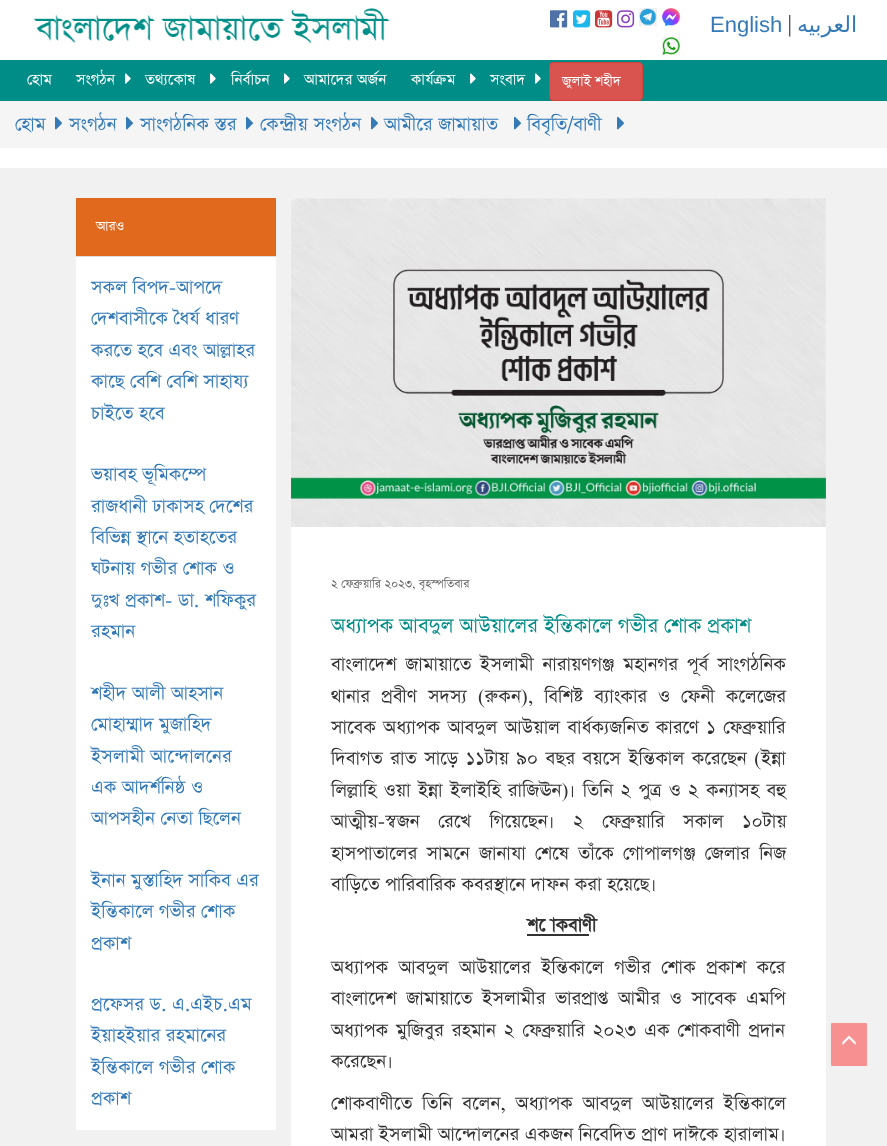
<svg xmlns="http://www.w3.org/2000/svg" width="887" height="1146">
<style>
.a{font:22px Liberation Sans;fill:#337ab7}
.b{font:22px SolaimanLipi;fill:#333}
.c{font:22px DejaVu Sans;direction:rtl;fill:#337ab7}
.d{font:18px SolaimanLipi;fill:#fff}
.e{font:16px SolaimanLipi;fill:#fff}
.f{font:22px SolaimanLipi;fill:#337ab7}
.g{font:14px SolaimanLipi;fill:#666}
.h{font:24px SolaimanLipi;fill:#008c87}
.i{font:bold 22px SolaimanLipi;fill:#333}
</style>
<rect width="100%" height="100%" fill="#fff"/>
<image href="1.png" x="33" y="8" width="357" height="36"/>
<image href="2.png" x="550" y="10" width="18" height="18"/>
<image href="3.png" x="573" y="10" width="18" height="18"/>
<image href="4.png" x="595" y="10" width="18" height="18"/>
<image href="5.png" x="617" y="10" width="18" height="18"/>
<image href="6.png" x="639" y="8" width="18" height="18"/>
<image href="7.png" x="662" y="8" width="18" height="18"/>
<image href="8.png" x="662" y="37" width="18" height="18"/>
<path fill="#008c87" d="M0 60h887v41H0z"/>
<image href="9.png" x="125" y="73" width="6" height="11"/>
<image href="9.png" x="210" y="73" width="6" height="11"/>
<image href="9.png" x="284" y="73" width="6" height="11"/>
<image href="9.png" x="470" y="73" width="6" height="11"/>
<image href="9.png" x="535" y="73" width="6" height="11"/>
<rect fill="#d9534f" stroke="#d43f3a" x="549.5" y="62.5" width="93" height="38" rx="3.5"/>
<path fill="#f5f5f5" d="M0 101h887v47H0z"/>
<image href="10.png" x="55" y="116" width="7" height="14"/>
<image href="10.png" x="126" y="116" width="7" height="14"/>
<image href="10.png" x="246" y="116" width="7" height="14"/>
<image href="10.png" x="371" y="116" width="7" height="14"/>
<image href="10.png" x="514" y="116" width="7" height="14"/>
<image href="10.png" x="617" y="116" width="7" height="14"/>
<path fill="#f1f1f1" d="M0 168h887v978H0z"/>
<path fill="#fff" d="M76 257h200v873H76z"/>
<path fill="#e1691e" d="M76 198h200v58H76z"/>
<path fill="#ddd" d="M76 256h200v1H76z"/>
<path fill="#fff" d="M291 527h535v619H291z"/>
<image href="11.png" x="291" y="198" width="535" height="329"/>
<path fill="#333" d="M527 934h62v2H527z"/>
<rect fill="#f79191" x="831" y="1023" width="36" height="43" rx="1"/>
<image href="12.png" x="842" y="1035" width="14" height="10"/>
<text class="a" x="710" y="32">English</text>
<text class="b" x="788" y="32">|</text>
<text class="c" x="857" y="32">العربيه</text>
<text class="d" x="27" y="85">হোম</text>
<text class="d" x="76" y="85">সংগঠন</text>
<text class="d" x="145" y="85">তথ্যকোষ</text>
<text class="d" x="231" y="85">নির্বাচন</text>
<text class="d" x="304" y="85">আমাদের অর্জন</text>
<text class="d" x="411" y="85">কার্যক্রম</text>
<text class="d" x="490" y="85">সংবাদ</text>
<text class="e" x="562" y="86">জুলাই শহীদ</text>
<text class="f" x="15" y="131">হোম</text>
<text class="f" x="69" y="131">সংগঠন</text>
<text class="f" x="140" y="131">সাংগঠনিক স্তর</text>
<text class="f" x="260" y="131">কেন্দ্রীয় সংগঠন</text>
<text class="f" x="384" y="131">আমীরে জামায়াত</text>
<text class="f" x="527" y="131">বিবৃতি/বাণী</text>
<text class="e" x="96" y="231">আরও</text>
<text class="f" x="91" y="294">সকল বিপদ-আপদে</text>
<text class="f" x="91" y="325">দেশবাসীকে ধৈর্য ধারণ</text>
<text class="f" x="91" y="357">করতে হবে এবং আল্লাহর</text>
<text class="f" x="91" y="388">কাছে বেশি বেশি সাহায্য</text>
<text class="f" x="91" y="420">চাইতে হবে</text>
<text class="f" x="91" y="481">ভয়াবহ ভূমিকম্পে</text>
<text class="f" x="91" y="513">রাজধানী ঢাকাসহ দেশের</text>
<text class="f" x="91" y="544">বিভিন্ন স্থানে হতাহতের</text>
<text class="f" x="91" y="575">ঘটনায় গভীর শোক ও</text>
<text class="f" x="91" y="607">দুঃখ প্রকাশ- ডা. শফিকুর</text>
<text class="f" x="91" y="638">রহমান</text>
<text class="f" x="91" y="700">শহীদ আলী আহসান</text>
<text class="f" x="91" y="731">মোহাম্মাদ মুজাহিদ</text>
<text class="f" x="91" y="763">ইসলামী আন্দোলনের</text>
<text class="f" x="91" y="794">এক আদর্শনিষ্ঠ ও</text>
<text class="f" x="91" y="825">আপসহীন নেতা ছিলেন</text>
<text class="f" x="91" y="887">ইনান মুস্তাহিদ সাকিব এর</text>
<text class="f" x="91" y="918">ইন্তিকালে গভীর শোক</text>
<text class="f" x="91" y="950">প্রকাশ</text>
<text class="f" x="91" y="1011">প্রফেসর ড. এ.এইচ.এম</text>
<text class="f" x="91" y="1042">ইয়াহইয়ার রহমানের</text>
<text class="f" x="91" y="1074">ইন্তিকালে গভীর শোক</text>
<text class="f" x="91" y="1105">প্রকাশ</text>
<text class="g" x="331" y="588">২ ফেব্রুয়ারি ২০২৩, বৃহস্পতিবার</text>
<text class="h" x="331" y="633">অধ্যাপক আবদুল আউয়ালের ইন্তিকালে গভীর শোক প্রকাশ</text>
<text class="b" x="331" y="671" word-spacing="3.25">বাংলাদেশ জামায়াতে ইসলামী নারায়ণগঞ্জ মহানগর পূর্ব সাংগঠনিক</text>
<text class="b" x="331" y="703" word-spacing="5.5">থানার প্রবীণ সদস্য (রুকন), বিশিষ্ট ব্যাংকার ও ফেনী কলেজের</text>
<text class="b" x="331" y="734" word-spacing="1.75">সাবেক অধ্যাপক আবদুল আউয়াল বার্ধক্যজনিত কারণে ১ ফেব্রুয়ারি</text>
<text class="b" x="331" y="765" word-spacing="2">দিবাগত রাত সাড়ে ১১টায় ৯০ বছর বয়সে ইন্তিকাল করেছেন (ইন্না</text>
<text class="b" x="331" y="797" word-spacing="1.9">লিল্লাহি ওয়া ইন্না ইলাইহি রাজিঊন)। তিনি ২ পুত্র ও ২ কন্যাসহ বহু</text>
<text class="b" x="331" y="828" word-spacing="13">আত্মীয়-স্বজন রেখে গিয়েছেন। ২ ফেব্রুয়ারি সকাল ১০টায়</text>
<text class="b" x="331" y="860" word-spacing="3.75">হাসপাতালের সামনে জানাযা শেষে তাঁকে গোপালগঞ্জ জেলার নিজ</text>
<text class="b" x="331" y="891">বাড়িতে পারিবারিক কবরস্থানে দাফন করা হয়েছে।</text>
<text class="i" x="527" y="932">শোকবাণী</text>
<text class="b" x="331" y="974" word-spacing="5">অধ্যাপক আবদুল আউয়ালের ইন্তিকালে গভীর শোক প্রকাশ করে</text>
<text class="b" x="331" y="1005" word-spacing="4.25">বাংলাদেশ জামায়াতে ইসলামীর ভারপ্রাপ্ত আমীর ও সাবেক এমপি</text>
<text class="b" x="331" y="1037" word-spacing="2.5">অধ্যাপক মুজিবুর রহমান ২ ফেব্রুয়ারি ২০২৩ এক শোকবাণী প্রদান</text>
<text class="b" x="331" y="1068">করেছেন।</text>
<text class="b" x="331" y="1110" word-spacing="4.25">শোকবাণীতে তিনি বলেন, অধ্যাপক আবদুল আউয়ালের ইন্তিকালে</text>
<text class="b" x="331" y="1141">আমরা ইসলামী আন্দোলনের একজন নিবেদিত প্রাণ দাঈকে হারালাম।</text>
</svg>
